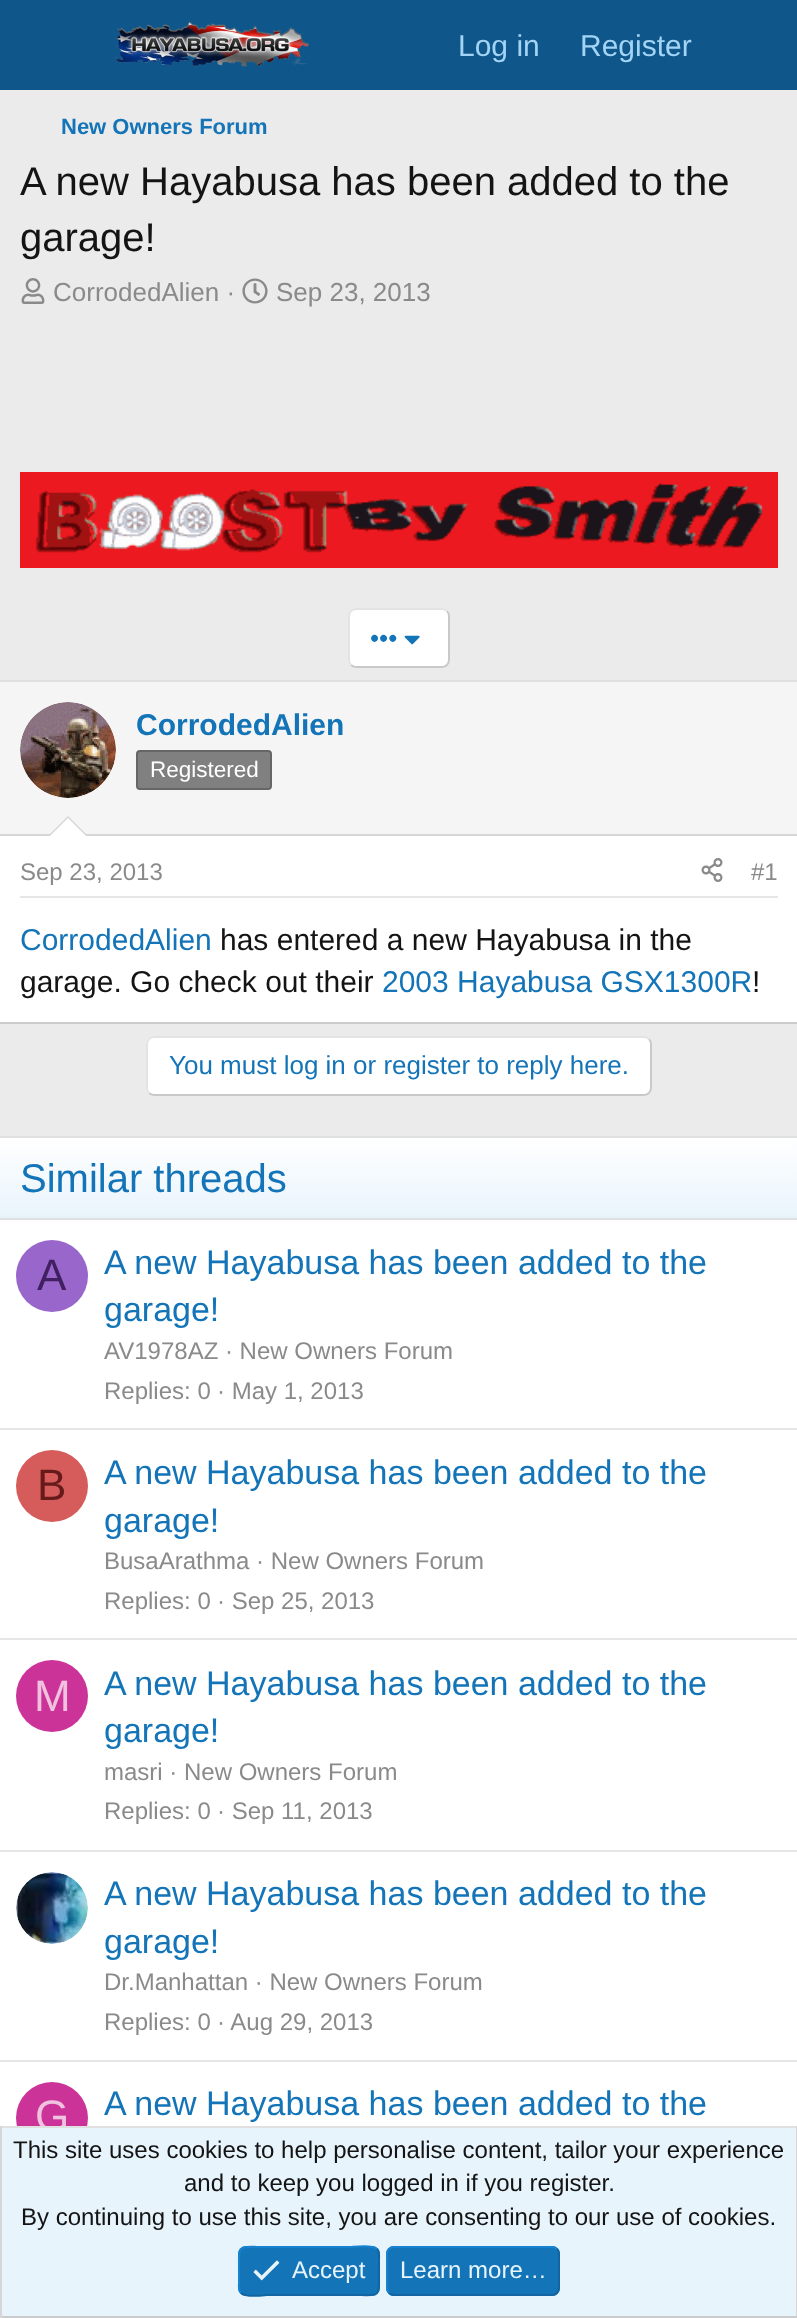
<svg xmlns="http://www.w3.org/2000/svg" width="797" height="2318">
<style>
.a{font:30px Liberation Sans;fill:#a3d4f5}
.b{font:bold 22px Liberation Sans;fill:#1474b8}
.c{font:40px Liberation Sans;fill:#141414}
.d{font:26px Liberation Sans;fill:#8a8a8a}
.e{font:26px Liberation Sans;fill:#1474b8}
.f{font:bold 30px Liberation Sans;fill:#1474b8}
.g{font:22.5px Liberation Sans;fill:#fff}
.h{font:24px Liberation Sans;fill:#8a8a8a}
.i{font:30px Liberation Sans;fill:#1474b8}
.j{font:30px Liberation Sans;fill:#141414}
.k{font:40px Liberation Sans;fill:#1474b8}
.l{font:44px Liberation Sans;fill:#402060}
.m{font:34px Liberation Sans;fill:#1474b8}
.n{font:44px Liberation Sans;fill:#661a1a}
.o{font:44px Liberation Sans;fill:#f0c2e0}
.p{font:24px Liberation Sans;fill:#141414}
.q{font:24px Liberation Sans;fill:#e8f4fc}
</style>
<defs>
<linearGradient id="g1" gradientUnits="userSpaceOnUse" x1="399" y1="1218" x2="399" y2="1138"><stop offset="0" stop-color="#e8f4fc"/><stop offset="1" stop-color="#fff"/></linearGradient>
</defs>
<rect width="100%" height="100%" fill="#ebebeb"/>
<path fill="#0f578a" d="M0 0h797v90H0z"/>
<image href="1.png" x="115" y="22" width="194" height="45"/>
<image href="2.png" x="21" y="278" width="24" height="26"/>
<image href="3.png" x="242" y="278" width="26" height="26"/>
<image href="4.png" x="20" y="472" width="758" height="96"/>
<rect fill="#fff" x="348" y="608" width="102" height="60" rx="8"/>
<path fill="none" stroke="#c9c9c9" stroke-width="2" d="M447 611c1.5 1.5 2 3 2 5v44c0 2-.5 3.5-2 5c-1.5 1.5-3 2-5 2h-86c-2 0-3.5-.5-5-2"/>
<path fill="none" stroke="#e3e3e3" stroke-width="2" d="M351 665c-1.5-1.5-2-3-2-5v-44c0-2 .5-3.5 2-5c1.5-1.5 3-2 5-2h86c2 0 3.5 .5 5 2"/>
<image href="5.png" x="404" y="635" width="16" height="10"/>
<path fill="#fff" d="M0 836h797v186H0z"/>
<path fill="#e0e0e0" d="M0 680h797v2H0z"/>
<path fill="#ccc" d="M0 1022h797v2H0z"/>
<path fill="#f5f5f5" d="M0 682h797v152H0z"/>
<path fill="#d6d6d6" d="M0 834h797v2H0z"/>
<circle fill="#fff" cx="68" cy="750" r="48"/>
<image href="6.png" x="20" y="702" width="96" height="96"/>
<rect fill="#808080" stroke="#666" stroke-width="2" x="137" y="751" width="134" height="38" rx="3"/>
<path fill="#d6d6d6" d="M88 836h-40l20-20z"/>
<path fill="#fff" d="M86 836h-36l18-18z"/>
<path fill="#e6e6e6" d="M20 896h758v2H20z"/>
<image href="7.png" x="701" y="858" width="22" height="24"/>
<rect fill="#fff" x="146" y="1036" width="506" height="60" rx="8"/>
<path fill="none" stroke="#c9c9c9" stroke-width="2" d="M649 1039c1.5 1.5 2 3 2 5v44c0 2-.5 3.5-2 5c-1.5 1.5-3 2-5 2h-490c-2 0-3.5-.5-5-2"/>
<path fill="none" stroke="#e3e3e3" stroke-width="2" d="M149 1093c-1.5-1.5-2-3-2-5v-44c0-2 .5-3.5 2-5c1.5-1.5 3-2 5-2h490c2 0 3.5 .5 5 2"/>
<path fill="#fff" d="M0 1220h797v906H0z"/>
<path fill="#e0e0e0" d="M0 1136h797v2H0z"/>
<path fill="url(#g1)" d="M0 1138h797v80H0z"/>
<path fill="#e0e0e0" d="M0 1218h797v2H0z"/>
<circle fill="#96c" cx="52" cy="1276" r="36"/>
<path fill="#e6e6e6" d="M0 1428h797v2H0z"/>
<circle fill="#d65c5c" cx="52" cy="1486" r="36"/>
<path fill="#e6e6e6" d="M0 1638h797v2H0z"/>
<circle fill="#c39" cx="52" cy="1696" r="36"/>
<path fill="#e6e6e6" d="M0 1850h797v2H0z"/>
<image href="8.png" x="16" y="1872" width="72" height="72"/>
<path fill="#e6e6e6" d="M0 2060h797v2H0z"/>
<circle fill="#c39" cx="52" cy="2118" r="36"/>
<text class="a" x="458" y="56">Log in</text>
<text class="a" x="580" y="56">Register</text>
<text class="b" x="61" y="134">New Owners Forum</text>
<text class="c" x="20" y="195">A new Hayabusa has been added to the</text>
<text class="c" x="20" y="251">garage!</text>
<text class="d" x="53" y="301">CorrodedAlien ·</text>
<text class="d" x="276" y="301">Sep 23, 2013</text>
<text class="e" x="370" y="647">•••</text>
<text class="f" x="136" y="735">CorrodedAlien</text>
<text class="g" x="150" y="777">Registered</text>
<text class="h" x="20" y="880">Sep 23, 2013</text>
<text class="h" x="751" y="880">#1</text>
<text class="i" x="20" y="950">CorrodedAlien</text>
<text class="j" x="220" y="950">has entered a new Hayabusa in the</text>
<text class="j" x="20" y="992">garage. Go check out their</text>
<text class="i" x="382" y="992">2003 Hayabusa GSX1300R</text>
<text class="j" x="752" y="992">!</text>
<text class="e" x="169" y="1074">You must log in or register to reply here.</text>
<text class="k" x="20" y="1192">Similar threads</text>
<text class="l" x="37" y="1290">A</text>
<text class="m" x="104" y="1274">A new Hayabusa has been added to the</text>
<text class="m" x="104" y="1321">garage!</text>
<text class="h" x="104" y="1359">AV1978AZ · New Owners Forum</text>
<text class="h" x="104" y="1399">Replies: 0</text>
<text class="h" x="217" y="1399">· May 1, 2013</text>
<text class="n" x="37" y="1500">B</text>
<text class="m" x="104" y="1484">A new Hayabusa has been added to the</text>
<text class="m" x="104" y="1532">garage!</text>
<text class="h" x="104" y="1569">BusaArathma · New Owners Forum</text>
<text class="h" x="104" y="1609">Replies: 0</text>
<text class="h" x="217" y="1609">· Sep 25, 2013</text>
<text class="o" x="34" y="1711">M</text>
<text class="m" x="104" y="1695">A new Hayabusa has been added to the</text>
<text class="m" x="104" y="1742">garage!</text>
<text class="h" x="104" y="1780">masri · New Owners Forum</text>
<text class="h" x="104" y="1819">Replies: 0</text>
<text class="h" x="217" y="1819">· Sep 11, 2013</text>
<text class="m" x="104" y="1905">A new Hayabusa has been added to the</text>
<text class="m" x="104" y="1953">garage!</text>
<text class="h" x="104" y="1990">Dr.Manhattan · New Owners Forum</text>
<text class="h" x="104" y="2030">Replies: 0</text>
<text class="h" x="217" y="2030">· Aug 29, 2013</text>
<text class="o" x="35" y="2131">G</text>
<text class="m" x="104" y="2115">A new Hayabusa has been added to the</text>
<path fill="#e8f4fc" d="M2 2128h794v188H2z"/>
<path fill="#e0e0e0" d="M0 2126h797v2H0z"/>
<path fill="#d6d6d6" d="M796 2126h1v192H796z"/>
<path fill="#ccc" d="M0 2316h797v2H0z"/>
<path fill="#d6d6d6" d="M0 2126h2v192H0z"/>
<text class="p" x="13" y="2158">This site uses cookies to help personalise content, tailor your experience</text>
<text class="p" x="184" y="2191">and to keep you logged in if you register.</text>
<text class="p" x="21" y="2225">By continuing to use this site, you are consenting to our use of cookies.</text>
<rect fill="#1474b8" x="238" y="2246" width="142" height="50" rx="8"/>
<path fill="none" stroke="#1265a1" stroke-width="2" d="M377 2249c3 3 2 7 2 10.5v11.5c0 28 2.5 24-28 24h-84c-2 0-21 3-26-2"/>
<path fill="none" stroke="#1782cf" stroke-width="2" d="M241 2293c-3-3-2-7-2-10.5v-11.5c0-28-2.5-24 28-24h84c2 0 21-3 26 2"/>
<image href="9.png" x="253" y="2260" width="27" height="21"/>
<text class="q" x="292" y="2278">Accept</text>
<rect fill="#1474b8" x="386" y="2246" width="174" height="50" rx="8"/>
<path fill="none" stroke="#1265a1" stroke-width="2" d="M557 2249c1.5 1.5 2 3 2 5v34c0 2-.5 3.5-2 5c-1.5 1.5-3 2-5 2h-158c-2 0-3.5-.5-5-2"/>
<path fill="none" stroke="#1782cf" stroke-width="2" d="M389 2293c-1.5-1.5-2-3-2-5v-34c0-2 .5-3.5 2-5c1.5-1.5 3-2 5-2h158c2 0 3.5 .5 5 2"/>
<text class="q" x="400" y="2278">Learn more…</text>
</svg>
